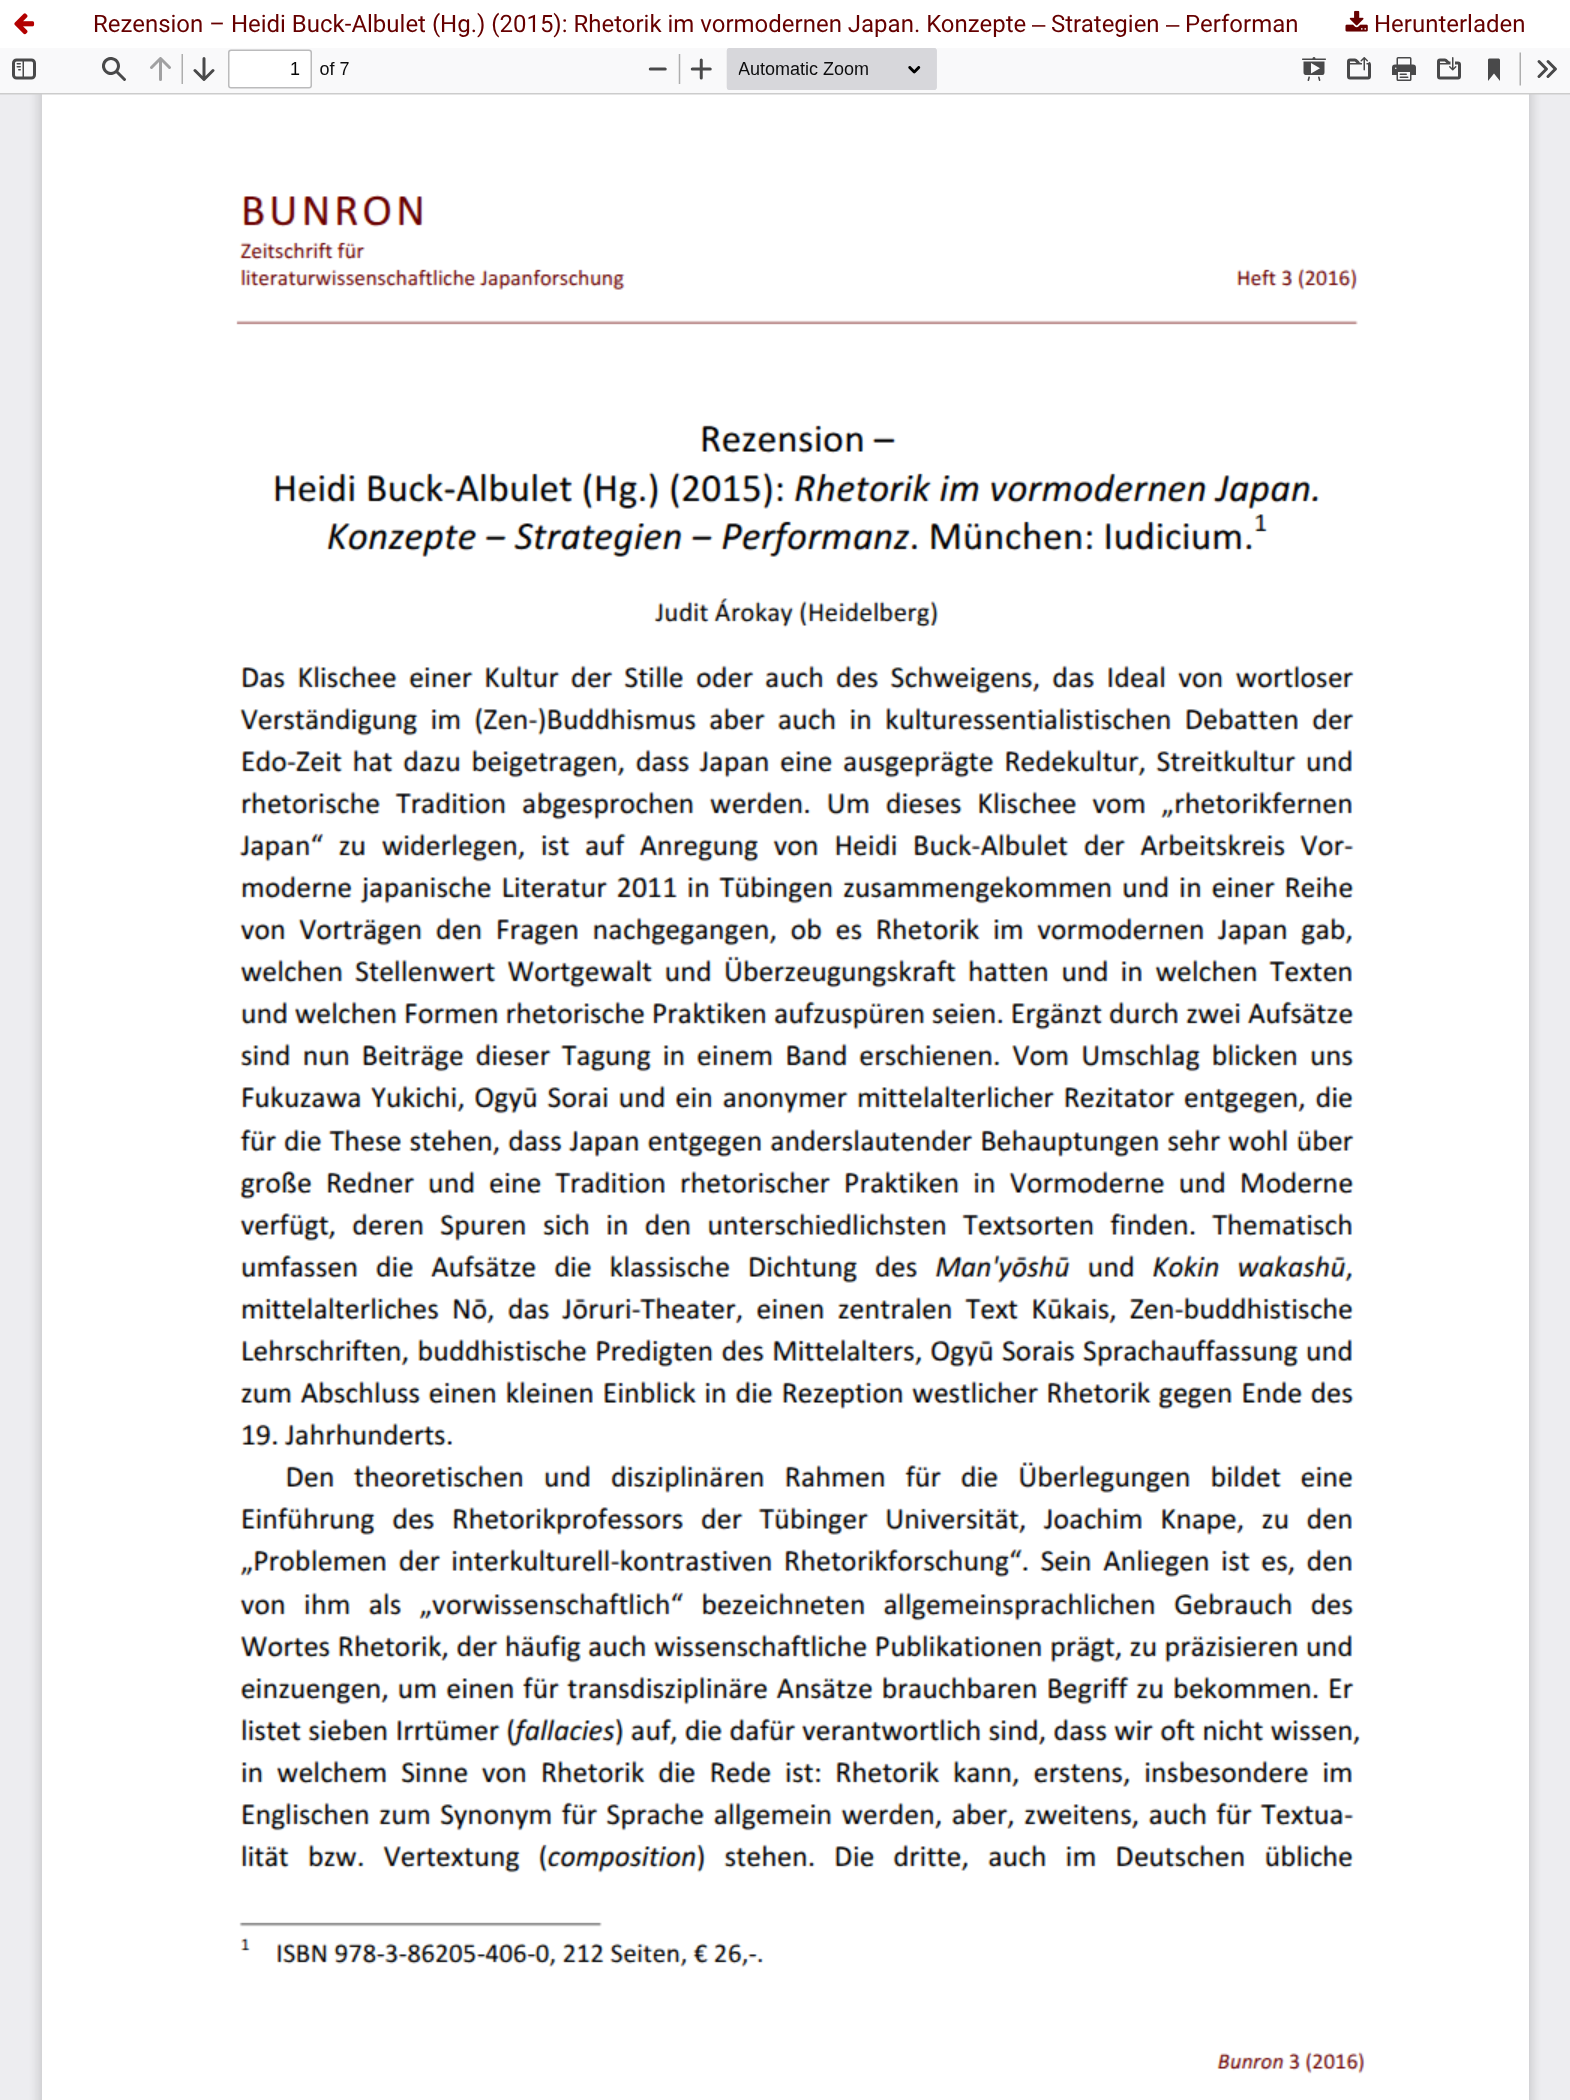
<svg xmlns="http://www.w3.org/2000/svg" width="1570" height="2100">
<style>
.a{font:24px Roboto;fill:#600}
.b{font:24px Liberation Sans;fill:#600}
</style>
<rect width="100%" height="100%" fill="#fff"/>
<image href="1.png" x="14" y="13" width="21" height="22"/>
<image href="2.png" x="1345" y="10" width="23" height="22"/>
<image href="3.png" x="0" y="48" width="1570" height="2052"/>
<text class="a" x="93" y="32">Rezension – Heidi Buck-Albulet (Hg.) (2015): Rhetorik im vormodernen Japan. Konzepte</text>
<text class="b" x="1032" y="32">‒</text>
<text class="a" x="1051" y="32">Strategien</text>
<text class="b" x="1166" y="32">‒</text>
<text class="a" x="1185" y="32">Performan</text>
<text class="a" x="1374" y="32">Herunterladen</text>
</svg>
